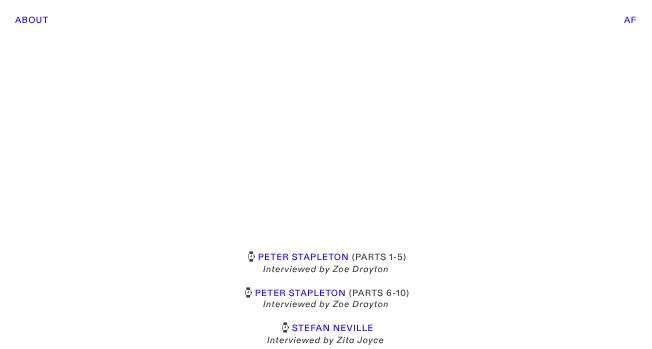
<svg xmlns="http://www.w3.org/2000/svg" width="652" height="349">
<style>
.a{font:500 9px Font;letter-spacing:0.6px;fill:#1900ff}
.b{font:500 9px Font;letter-spacing:0.6px;fill:#404040}
.c{font:italic 500 9px Font;letter-spacing:0.6px;fill:#404040}
</style>
<rect width="100%" height="100%" fill="#fff"/>
<image href="1.png" x="248" y="251" width="7" height="11"/>
<image href="1.png" x="245" y="287" width="7" height="11"/>
<image href="1.png" x="282" y="322" width="7" height="11"/>
<text class="a" x="15" y="23">ABOUT</text>
<text class="a" x="624" y="23">AF</text>
<text class="a" x="258" y="260">PETER STAPLETON</text>
<text class="b" x="352" y="260">(PARTS 1-5)</text>
<text class="c" x="263" y="272">Interviewed by Zoe Drayton</text>
<text class="a" x="255" y="296">PETER STAPLETON</text>
<text class="b" x="349" y="296">(PARTS 6-10)</text>
<text class="c" x="263" y="307">Interviewed by Zoe Drayton</text>
<text class="a" x="292" y="331">STEFAN NEVILLE</text>
<text class="c" x="267" y="343">Interviewed by Zita Joyce</text>
</svg>
